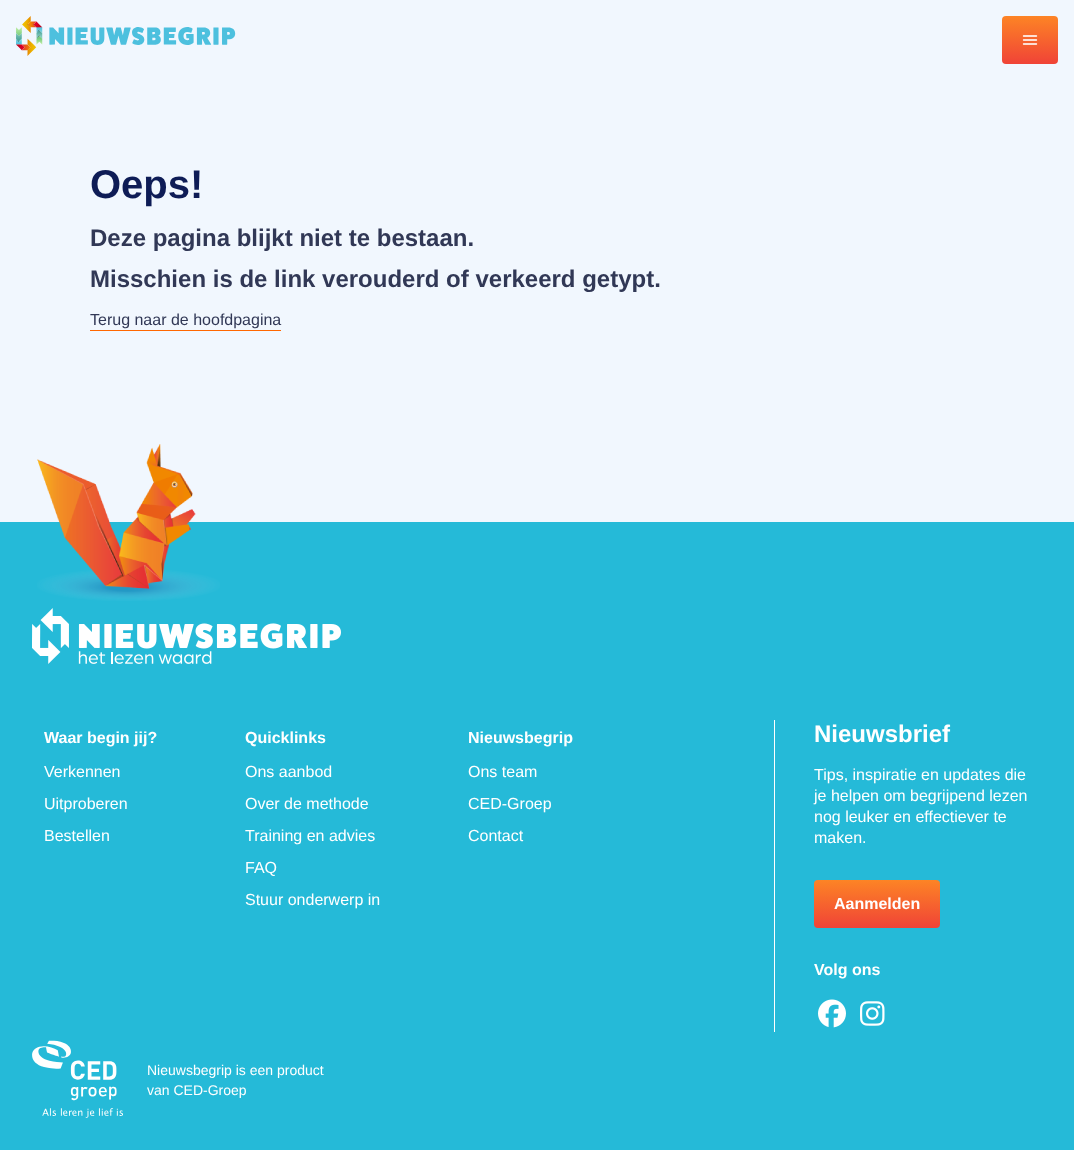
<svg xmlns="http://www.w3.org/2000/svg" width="1074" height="1150">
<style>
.a{font:bold 40px Liberation Sans;fill:#0e1c56}
.b{font:bold 24px Liberation Sans;fill:#313856}
.c{font:16px Liberation Sans;fill:#313856}
.d{font:bold 16px Liberation Sans;fill:#fff}
.e{font:16px Liberation Sans;fill:#fff}
.f{font:bold 24px Liberation Sans;fill:#fff}
.g{font:14px Liberation Sans;fill:#fff}
</style>
<defs>
<linearGradient id="g1" gradientUnits="userSpaceOnUse" x1="1030" y1="16" x2="1030" y2="64"><stop offset="0" stop-color="#fd8425"/><stop offset="1" stop-color="#f04337"/></linearGradient>
<linearGradient id="g2" gradientUnits="userSpaceOnUse" x1="877" y1="880" x2="877" y2="928"><stop offset="0" stop-color="#fd8425"/><stop offset="1" stop-color="#f04337"/></linearGradient>
</defs>
<rect width="100%" height="100%" fill="#f1f7fe"/>
<image href="1.png" x="16" y="16" width="220" height="40"/>
<rect fill="url(#g1)" x="1002" y="16" width="56" height="48" rx="4"/>
<image href="2.png" x="1022" y="35" width="16" height="10"/>
<path fill="#ff6700" d="M90 330h191v1H90z"/>
<path fill="#25bad8" d="M0 522h1074v628H0z"/>
<image href="3.png" x="37" y="444" width="183" height="157"/>
<image href="4.png" x="32" y="608" width="309" height="56"/>
<path fill="#fff" d="M774 720h1v312H774z"/>
<rect fill="url(#g2)" x="814" y="880" width="126" height="48" rx="4"/>
<image href="5.png" x="818" y="999" width="28" height="29"/>
<image href="6.png" x="860" y="1001" width="25" height="25"/>
<image href="7.png" x="32" y="1040" width="91" height="78"/>
<text class="a" x="90" y="198">Oeps!</text>
<text class="b" x="90" y="246">Deze pagina blijkt niet te bestaan.</text>
<text class="b" x="90" y="287">Misschien is de link verouderd of verkeerd getypt.</text>
<text class="c" x="90" y="325">Terug naar de hoofdpagina</text>
<text class="d" x="44" y="743">Waar begin jij?</text>
<text class="e" x="44" y="777">Verkennen</text>
<text class="e" x="44" y="809">Uitproberen</text>
<text class="e" x="44" y="841">Bestellen</text>
<text class="d" x="245" y="743">Quicklinks</text>
<text class="e" x="245" y="777">Ons aanbod</text>
<text class="e" x="245" y="809">Over de methode</text>
<text class="e" x="245" y="841">Training en advies</text>
<text class="e" x="245" y="873">FAQ</text>
<text class="e" x="245" y="905">Stuur onderwerp in</text>
<text class="d" x="468" y="743">Nieuwsbegrip</text>
<text class="e" x="468" y="777">Ons team</text>
<text class="e" x="468" y="809">CED-Groep</text>
<text class="e" x="468" y="841">Contact</text>
<text class="f" x="814" y="742">Nieuwsbrief</text>
<text class="e" x="814" y="780">Tips, inspiratie en updates die</text>
<text class="e" x="814" y="801">je helpen om begrijpend lezen</text>
<text class="e" x="814" y="822">nog leuker en effectiever te</text>
<text class="e" x="814" y="843">maken.</text>
<text class="d" x="834" y="909">Aanmelden</text>
<text class="d" x="814" y="975">Volg ons</text>
<text class="g" x="147" y="1075">Nieuwsbegrip is een product</text>
<text class="g" x="147" y="1095">van CED-Groep</text>
</svg>
